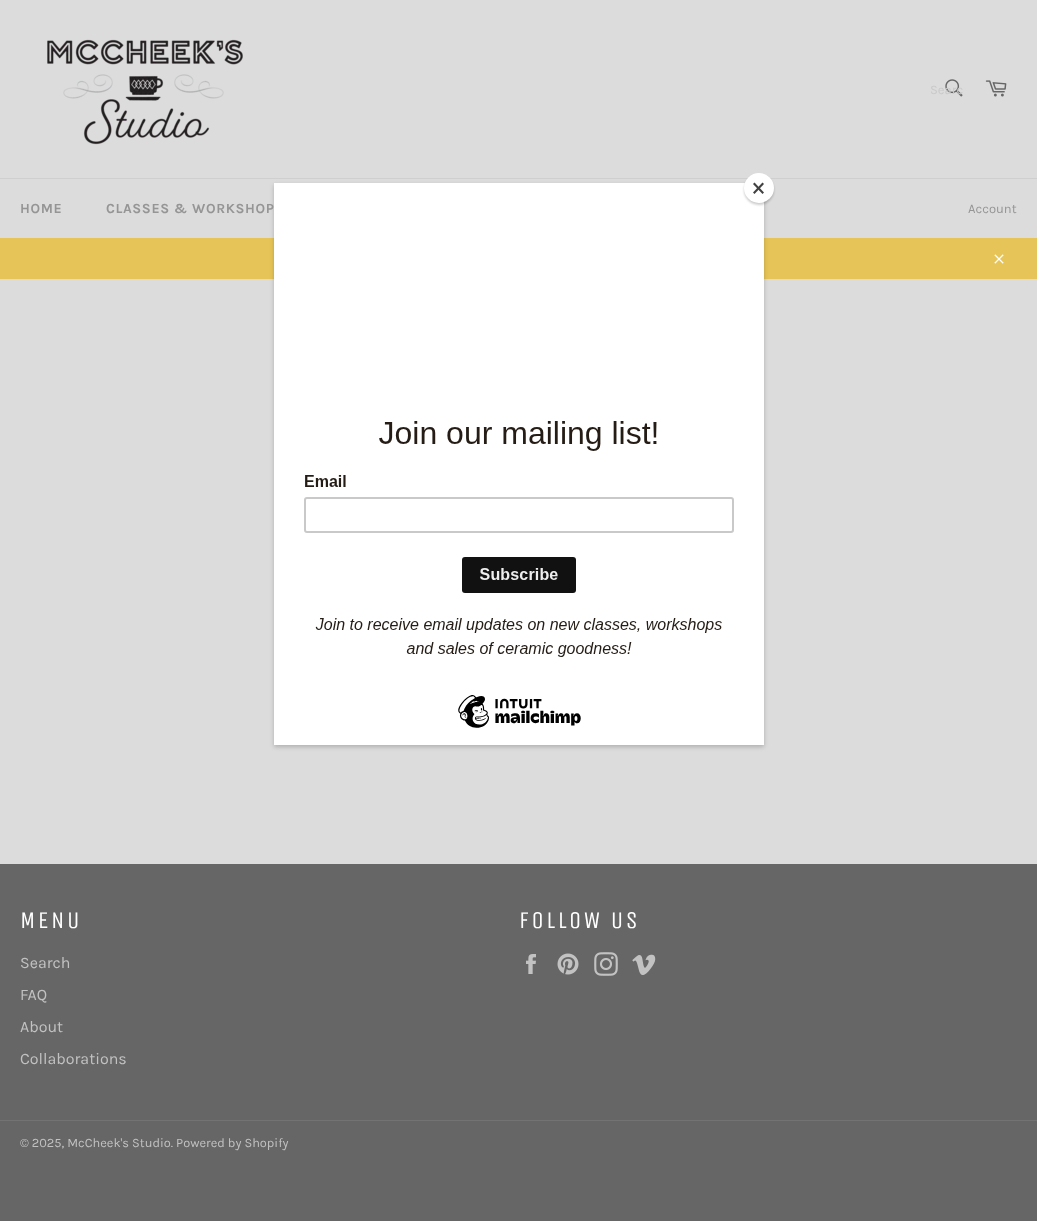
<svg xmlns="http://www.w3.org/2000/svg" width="1037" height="1221">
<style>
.a{font:13px Karla;fill:#c9c9c9}
.b{font:bold 14px Karla;letter-spacing:0.6px;fill:#959595}
.c{font:13px Karla;fill:#959595}
.d{font:24px Unica One;letter-spacing:2.5px;fill:#fff}
.e{font:16px Karla;fill:#c2c2c2}
.f{font:12.8px Karla;fill:#c2c2c2}
</style>
<rect width="100%" height="100%" fill="#666"/>
<path fill="#dcdcdc" d="M0 0h1037v864H0z"/>
<image href="1.png" x="47" y="39" width="196" height="106"/>
<image href="2.png" x="945" y="79" width="18" height="18"/>
<image href="3.png" x="985" y="80" width="22" height="17"/>
<path fill="#cfcfcf" d="M0 178h1037v1H0z"/>
<path fill="#e6c457" d="M0 238h1037v41H0z"/>
<image href="4.png" x="994" y="254" width="10" height="10"/>
<path fill="#00000033" filter="blur(2px)" d="M274 185h490v562H274z"/>
<image href="5.png" x="274" y="183" width="490" height="562"/>
<rect fill="#00000033" filter="blur(1px)" x="744" y="175" width="30" height="30" rx="15"/>
<circle fill="#fff" cx="759" cy="188" r="15"/>
<path fill="#414141" d="M762.5 182.5l1.5 1.5l-9.5 10l-1.5-1.5z"/>
<path fill="#414141" d="M753 184l1.5-1.5l9.5 10l-1.5 1.5z"/>
<image href="6.png" x="526" y="954" width="10" height="20"/>
<image href="7.png" x="557" y="953" width="22" height="22"/>
<image href="8.png" x="594" y="952" width="24" height="24"/>
<image href="9.png" x="632" y="954" width="24" height="21"/>
<path fill="#737373" d="M0 1120h1037v1H0z"/>
<text class="a" x="930" y="94">Searc</text>
<text class="b" x="20" y="213">HOME</text>
<text class="b" x="106" y="213">CLASSES &amp; WORKSHOP</text>
<text class="c" x="968" y="213">Account</text>
<text class="d" x="20" y="928">MENU</text>
<text class="e" x="20" y="968">Search</text>
<text class="e" x="20" y="1000">FAQ</text>
<text class="e" x="20" y="1032">About</text>
<text class="e" x="20" y="1064">Collaborations</text>
<text class="d" x="519" y="928">FOLLOW US</text>
<text class="f" x="20" y="1147">© 2025, McCheek's Studio. Powered by Shopify</text>
</svg>
